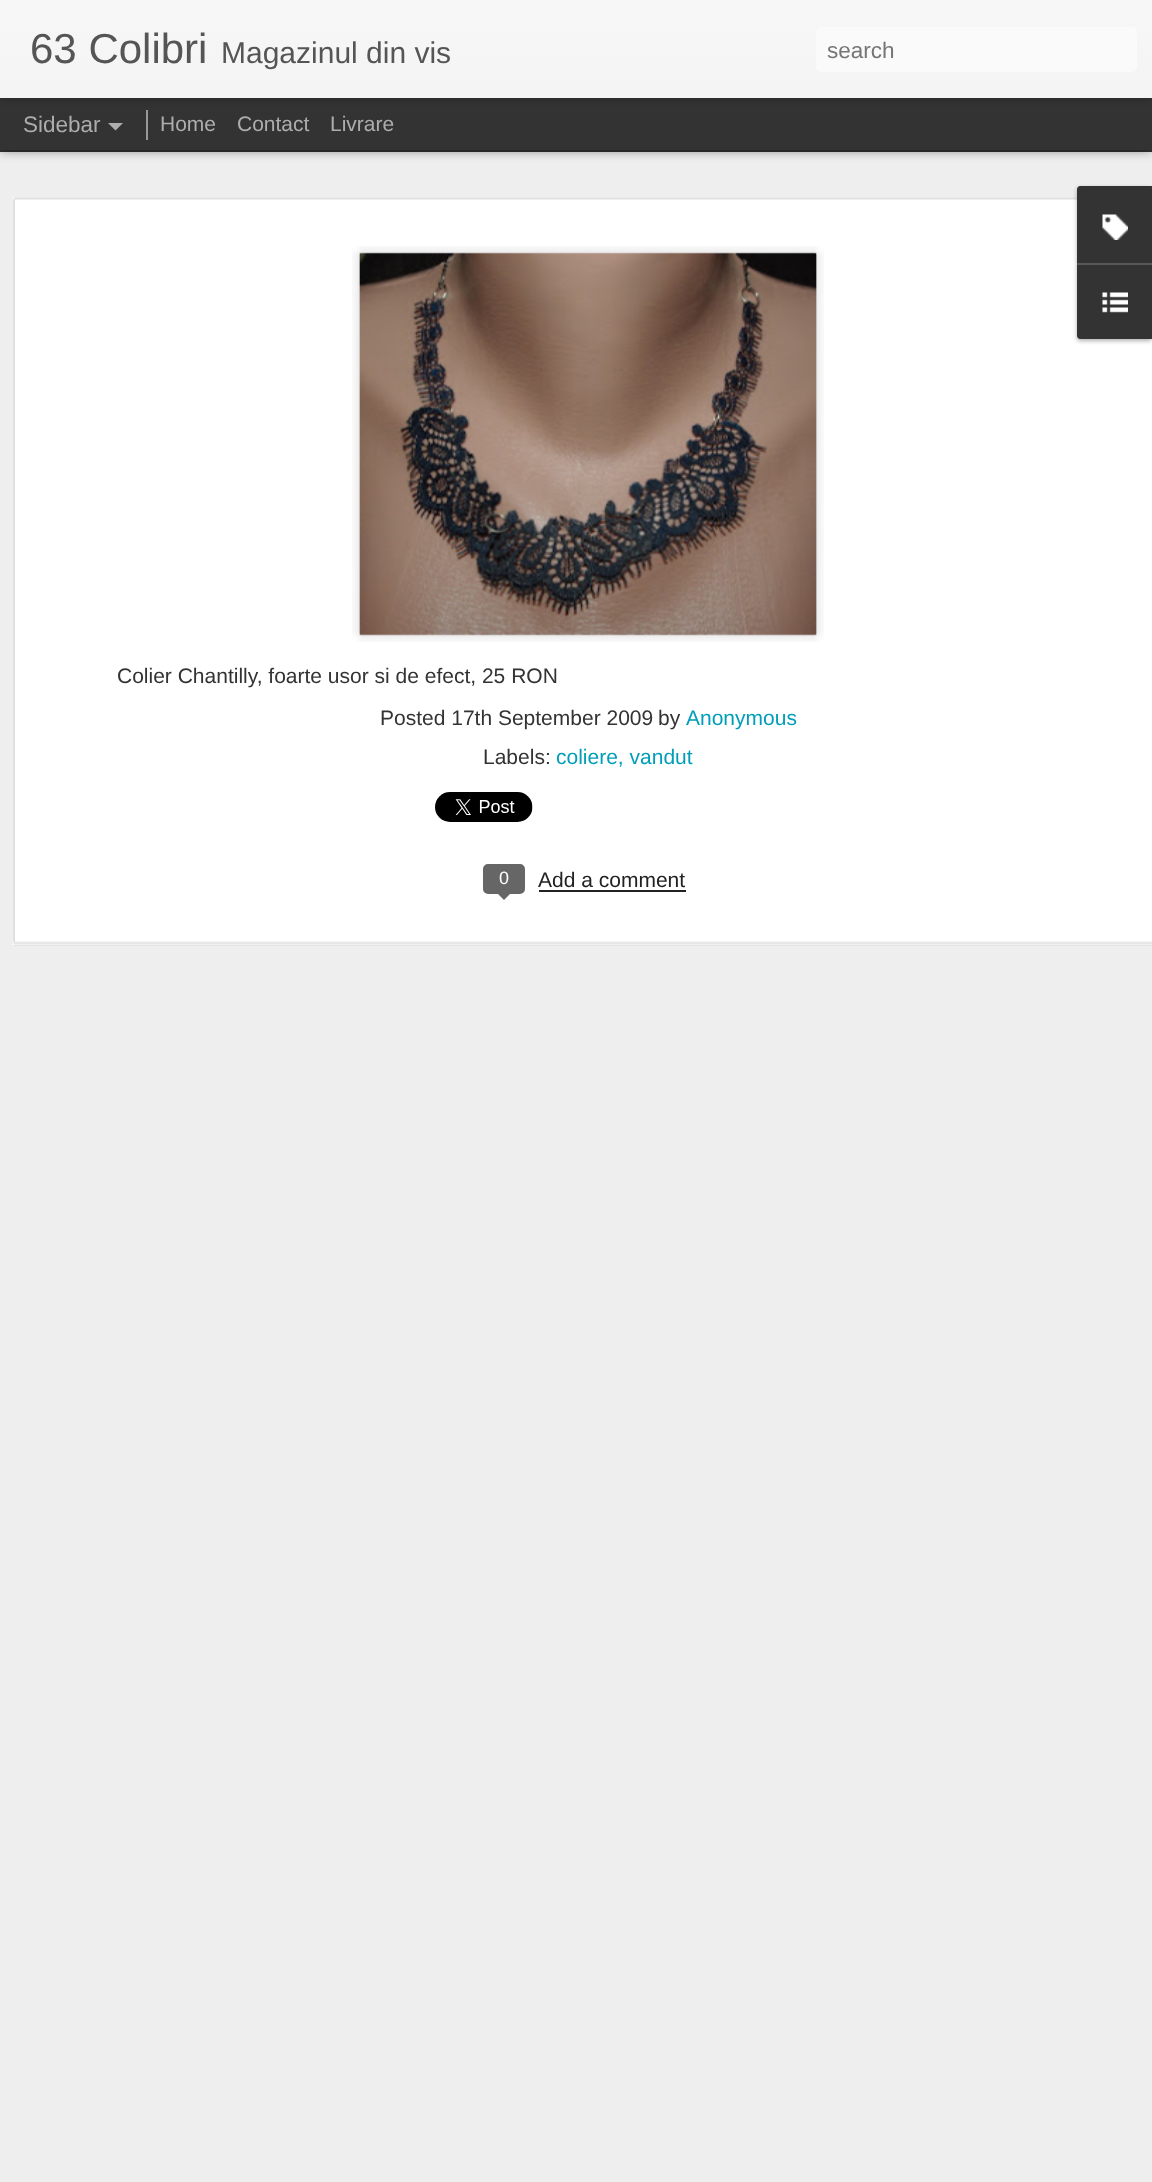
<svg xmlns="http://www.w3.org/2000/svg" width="1152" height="2182">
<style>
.a{font:42px Liberation Sans;fill:#555}
.b{font:30px Liberation Sans;fill:#555}
.c{font:22.5px Liberation Sans;fill:#757575}
.d{font:22.5px Liberation Sans;fill:#adadad}
.e{font:21px Liberation Sans;fill:#adadad}
.f{font:21px Liberation Sans;fill:#333}
.g{font:21px Liberation Sans;fill:#009eb8}
.h{font:18px Liberation Sans;fill:#fff}
.i{font:21px Liberation Sans;fill:#222}
</style>
<defs>
<linearGradient id="g1" gradientUnits="userSpaceOnUse" x1="0" y1="0" x2="0" y2="98"><stop offset="0" stop-color="#f7f7f7"/><stop offset="1" stop-color="#f4f4f4"/></linearGradient>
</defs>
<rect width="100%" height="100%" fill="#333"/>
<path fill="#eee" d="M0 152h1152v2030H0z"/>
<path fill="#00000080" filter="blur(6px)" d="M0 98h1152v52H0z"/>
<path fill="#333" d="M0 98h1152v52H0z"/>
<path fill="#999" d="M146 110h2v30H146z"/>
<path fill="#0000004d" filter="blur(4px)" d="M0 0h1152v98H0z"/>
<path fill="url(#g1)" d="M0 0h1152v98H0z"/>
<rect fill="#fafafa" x="816" y="27" width="321" height="45" rx="5"/>
<path fill="#adadad" d="M108 123h15l-7.5 7.5z"/>
<path fill="#fff" d="M12 197h1140v748H12z"/>
<image href="3.png" x="12" y="197" width="1140" height="749"/>
<rect fill="#0000004d" filter="blur(2px)" x="1077" y="188" width="75" height="153" rx="3"/>
<path fill="#333" d="M1080 186h72v77h-75v-74c0-1.5 1.5-3 3-3z"/>
<image href="1.png" x="1102" y="214" width="26" height="26"/>
<path fill="#333" d="M1077 263h75v76h-72c-1.5 0-3-1.5-3-3z"/>
<path fill="#585858" d="M1077 263h75v2H1077z"/>
<image href="2.png" x="1102" y="292" width="26" height="21"/>
<image href="4.png" x="352" y="246" width="472" height="396"/>
<image href="5.png" x="359" y="252" width="458" height="384"/>
<image href="6.png" x="435" y="792" width="98" height="30"/>
<rect fill="#666" stroke="#666" stroke-width="2" x="484" y="865" width="40" height="28" rx="4"/>
<path fill="#666" d="M496.5 892.5h15l-7.5 7.5z"/>
<path fill="#222" d="M539 890h147v2H539z"/>
<text class="a" x="30" y="63">63 Colibri</text>
<text class="b" x="221" y="63">Magazinul din vis</text>
<text class="c" x="827" y="58">search</text>
<text class="d" x="23" y="132">Sidebar</text>
<text class="e" x="160" y="131">Home</text>
<text class="e" x="237" y="131">Contact</text>
<text class="e" x="330" y="131">Livrare</text>
<text class="f" x="117" y="683">Colier Chantilly, foarte usor si de efect, 25 RON</text>
<text class="f" x="380" y="725">Posted 17th September 2009</text>
<text class="f" x="658" y="725">by</text>
<text class="g" x="686" y="725">Anonymous</text>
<text class="f" x="483" y="764">Labels:</text>
<text class="g" x="556" y="764">coliere, vandut</text>
<text class="h" x="499" y="884">0</text>
<text class="i" x="538" y="887">Add a comment</text>
</svg>
